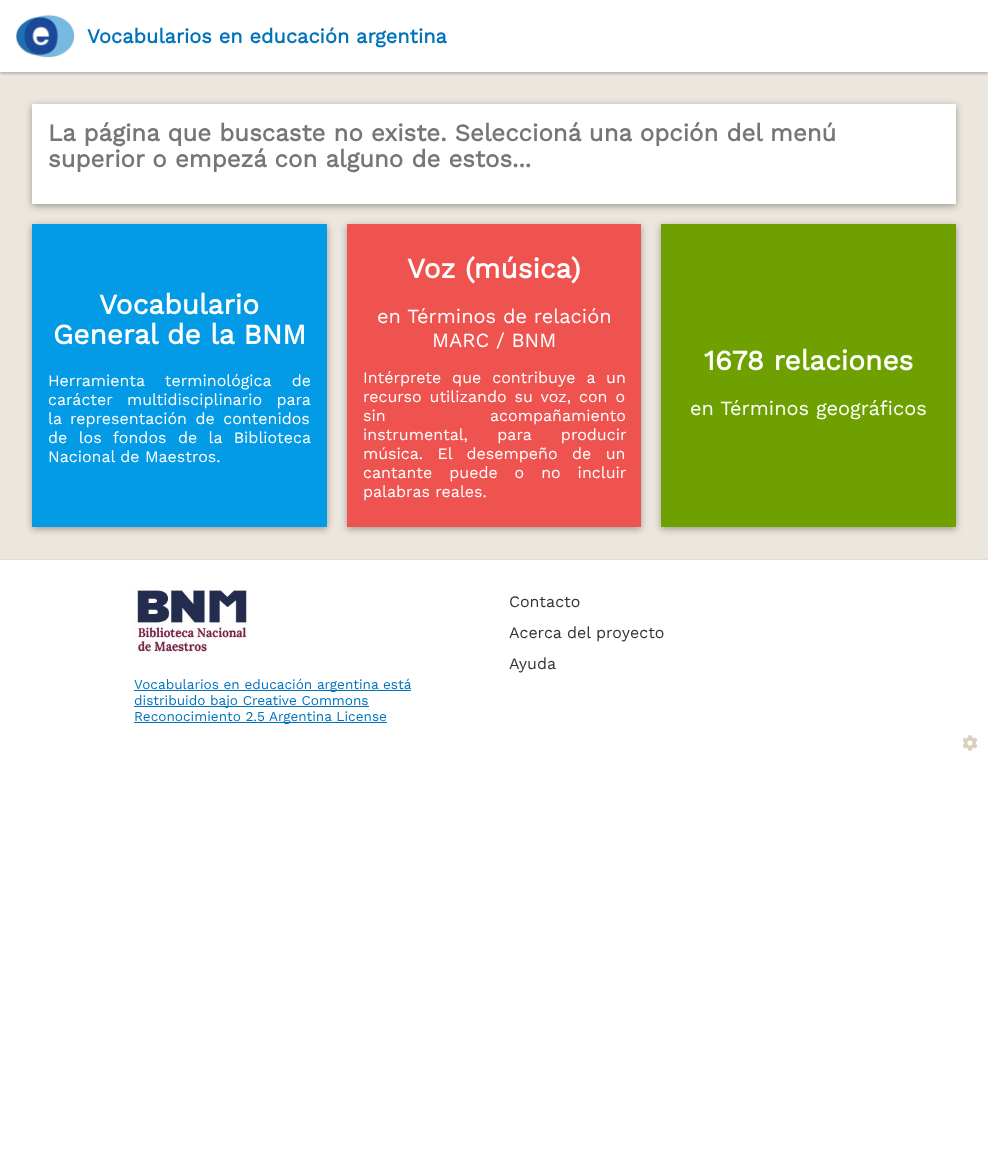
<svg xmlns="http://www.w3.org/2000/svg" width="988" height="1173">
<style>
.a{font:bold 20px Work Sans;fill:#0072bb}
.b{font:bold 24px Work Sans;fill:#767676}
.c{font:bold 28px Work Sans;fill:#fff}
.d{font:16px Work Sans;fill:#fff}
.e{font:20px Work Sans;fill:#fff}
.f{font:16px Work Sans;fill:#333}
.g{font:13.6px Work Sans;fill:#0072bb}
</style>
<rect width="100%" height="100%" fill="#fff"/>
<path fill="#ebe7df" d="M0 72h988v487H0z"/>
<path fill="#00000033" filter="blur(1px)" d="M0 2h988v72H0z"/>
<path fill="#fff" d="M0 0h988v72H0z"/>
<image href="1.png" x="16" y="15" width="59" height="43"/>
<path fill="#00000057" filter="blur(3.5px)" d="M32 106h924v100H32z"/>
<path fill="#fff" d="M32 104h924v100H32z"/>
<path fill="#00000057" filter="blur(3.5px)" d="M32 226h295v303H32z"/>
<path fill="#039be5" d="M32 224h295v303H32z"/>
<path fill="#00000057" filter="blur(3.5px)" d="M347 226h294v303H347z"/>
<path fill="#ef5350" d="M347 224h294v303H347z"/>
<path fill="#00000057" filter="blur(3.5px)" d="M661 226h295v303H661z"/>
<path fill="#6ea100" d="M661 224h295v303H661z"/>
<path fill="#ddd" d="M0 559h988v1H0z"/>
<image href="2.png" x="134" y="586" width="115" height="70"/>
<path fill="#0072bb" d="M134 690h277v1H134z"/>
<path fill="#0072bb" d="M134 706h235v1H134z"/>
<path fill="#0072bb" d="M134 722h253v1H134z"/>
<image href="3.png" x="962" y="735" width="16" height="16"/>
<text class="a" x="87" y="43">Vocabularios en educación argentina</text>
<text class="b" x="48" y="141">La página que buscaste no existe. Seleccioná una opción del menú</text>
<text class="b" x="48" y="167">superior o empezá con alguno de estos...</text>
<text class="c" x="99" y="314">Vocabulario</text>
<text class="c" x="53" y="344">General de la BNM</text>
<text class="d" x="48" y="386" word-spacing="15">Herramienta terminológica de</text>
<text class="d" x="48" y="405" word-spacing="9">carácter multidisciplinario para</text>
<text class="d" x="48" y="424" word-spacing="3">la representación de contenidos</text>
<text class="d" x="48" y="443" word-spacing="6">de los fondos de la Biblioteca</text>
<text class="d" x="48" y="462">Nacional de Maestros.</text>
<text class="c" x="407" y="278">Voz (música)</text>
<text class="e" x="377" y="323">en Términos de relación</text>
<text class="e" x="432" y="347">MARC / BNM</text>
<text class="d" x="363" y="383" word-spacing="5.5">Intérprete que contribuye a un</text>
<text class="d" x="363" y="402" word-spacing="2.5">recurso utilizando su voz, con o</text>
<text class="d" x="363" y="421" word-spacing="99">sin acompañamiento</text>
<text class="d" x="363" y="440" word-spacing="24">instrumental, para producir</text>
<text class="d" x="363" y="459" word-spacing="9">música. El desempeño de un</text>
<text class="d" x="363" y="478" word-spacing="11.5">cantante puede o no incluir</text>
<text class="d" x="363" y="497">palabras reales.</text>
<text class="c" x="704" y="370">1678 relaciones</text>
<text class="e" x="690" y="415">en Términos geográficos</text>
<text class="f" x="509" y="607">Contacto</text>
<text class="f" x="509" y="638">Acerca del proyecto</text>
<text class="f" x="509" y="669">Ayuda</text>
<text class="g" x="134" y="689">Vocabularios en educación argentina está</text>
<text class="g" x="134" y="705">distribuido bajo Creative Commons</text>
<text class="g" x="134" y="721">Reconocimiento 2.5 Argentina License</text>
</svg>
